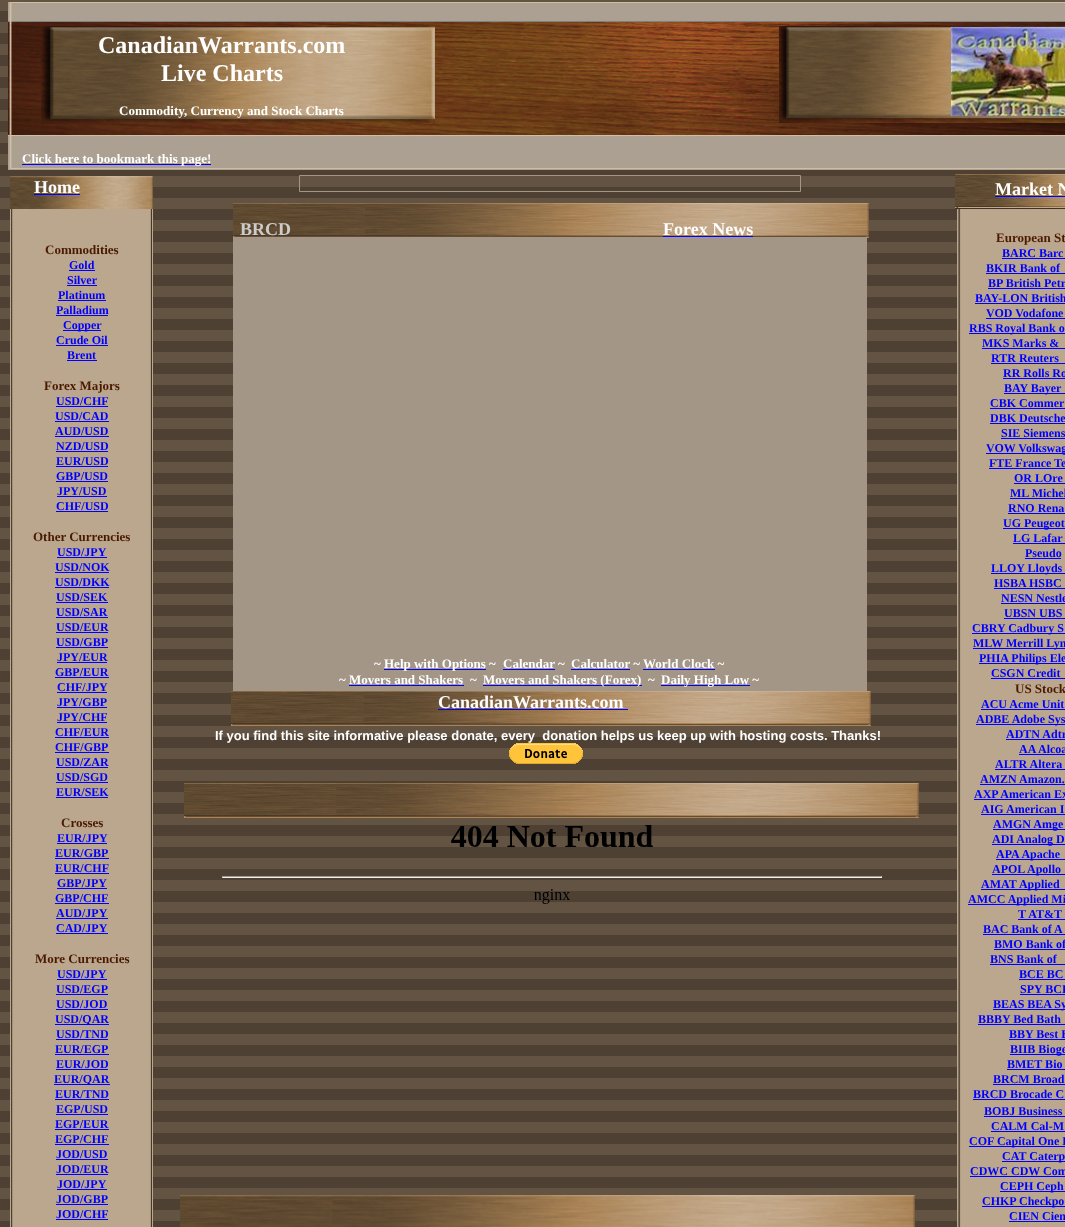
<svg xmlns="http://www.w3.org/2000/svg" width="1065" height="1227">
<style>
.a{font:bold 24px Liberation Serif;fill:#fff}
.b{font:bold 13px Liberation Serif;fill:#fff}
.c{font:bold 18px Liberation Serif;fill:#ccc}
.d{font:bold 18px Liberation Serif;fill:#fff}
.e{font:bold 13px Liberation Serif;fill:#4a1a00}
.f{font:bold 12px Liberation Serif;fill:#00f}
.g{font:bold 13px Liberation Sans;fill:#fff}
</style>
<rect width="100%" height="100%" fill="#fff"/>
<image href="1.png" x="0" y="0" width="1065" height="1227"/>
<image href="2.png" x="8" y="2" width="1057" height="168"/>
<image href="3.png" x="41" y="26" width="394" height="98"/>
<image href="4.png" x="779" y="26" width="286" height="97"/>
<image href="5.png" x="951" y="27" width="114" height="89"/>
<path fill="none" stroke="#a49686" d="M299.5 175.5h501v16H299.5z"/>
<image href="6.png" x="955" y="174" width="110" height="35"/>
<image href="7.png" x="957" y="209" width="108" height="1018"/>
<image href="8.png" x="10" y="209" width="143" height="1018"/>
<image href="15.png" x="233" y="203" width="636" height="35"/>
<path fill="#00f" d="M663 236h90v1H663z"/>
<path fill="#00f" d="M69 270h26v1H69z"/>
<path fill="#00f" d="M67 285h30v1H67z"/>
<path fill="#00f" d="M58 300h48v1H58z"/>
<path fill="#00f" d="M56 315h52v1H56z"/>
<path fill="#00f" d="M63 330h38v1H63z"/>
<path fill="#00f" d="M56 345h52v1H56z"/>
<path fill="#00f" d="M67 360h30v1H67z"/>
<path fill="#00f" d="M56 406h52v1H56z"/>
<path fill="#00f" d="M55 421h54v1H55z"/>
<path fill="#00f" d="M55 436h54v1H55z"/>
<path fill="#00f" d="M56 451h52v1H56z"/>
<path fill="#00f" d="M56 466h52v1H56z"/>
<path fill="#00f" d="M56 481h52v1H56z"/>
<path fill="#00f" d="M57 496h50v1H57z"/>
<path fill="#00f" d="M56 511h52v1H56z"/>
<path fill="#00f" d="M57 557h50v1H57z"/>
<path fill="#00f" d="M55 572h54v1H55z"/>
<path fill="#00f" d="M55 587h54v1H55z"/>
<path fill="#00f" d="M56 602h52v1H56z"/>
<path fill="#00f" d="M56 617h52v1H56z"/>
<path fill="#00f" d="M56 632h52v1H56z"/>
<path fill="#00f" d="M56 647h52v1H56z"/>
<path fill="#00f" d="M57 662h50v1H57z"/>
<path fill="#00f" d="M55 677h54v1H55z"/>
<path fill="#00f" d="M57 692h50v1H57z"/>
<path fill="#00f" d="M57 707h50v1H57z"/>
<path fill="#00f" d="M57 722h50v1H57z"/>
<path fill="#00f" d="M55 737h54v1H55z"/>
<path fill="#00f" d="M55 752h54v1H55z"/>
<path fill="#00f" d="M56 767h52v1H56z"/>
<path fill="#00f" d="M56 782h52v1H56z"/>
<path fill="#00f" d="M56 797h52v1H56z"/>
<path fill="#00f" d="M57 843h50v1H57z"/>
<path fill="#00f" d="M55 858h54v1H55z"/>
<path fill="#00f" d="M55 873h54v1H55z"/>
<path fill="#00f" d="M57 888h50v1H57z"/>
<path fill="#00f" d="M55 903h54v1H55z"/>
<path fill="#00f" d="M56 918h52v1H56z"/>
<path fill="#00f" d="M56 933h52v1H56z"/>
<path fill="#00f" d="M57 979h50v1H57z"/>
<path fill="#00f" d="M56 994h52v1H56z"/>
<path fill="#00f" d="M56 1009h52v1H56z"/>
<path fill="#00f" d="M55 1024h54v1H55z"/>
<path fill="#00f" d="M56 1039h52v1H56z"/>
<path fill="#00f" d="M55 1054h54v1H55z"/>
<path fill="#00f" d="M56 1069h52v1H56z"/>
<path fill="#00f" d="M54 1084h56v1H54z"/>
<path fill="#00f" d="M55 1099h54v1H55z"/>
<path fill="#00f" d="M56 1114h52v1H56z"/>
<path fill="#00f" d="M55 1129h54v1H55z"/>
<path fill="#00f" d="M55 1144h54v1H55z"/>
<path fill="#00f" d="M56 1159h52v1H56z"/>
<path fill="#00f" d="M56 1174h52v1H56z"/>
<path fill="#00f" d="M57 1189h50v1H57z"/>
<path fill="#00f" d="M56 1204h52v1H56z"/>
<path fill="#00f" d="M56 1219h52v1H56z"/>
<path fill="#a49686" d="M233 237h634v454H233z"/>
<image href="9.png" x="180" y="1195" width="735" height="32"/>
<path fill="#00f" d="M22 164h189v1H22z"/>
<image href="10.png" x="10" y="176" width="143" height="33"/>
<path fill="#00f" d="M34 194h46v1H34z"/>
<path fill="#00f" d="M995 196h70v1H995z"/>
<path fill="#00f" d="M1002 258h63v1H1002z"/>
<path fill="#00f" d="M986 273h79v1H986z"/>
<path fill="#00f" d="M988 288h77v1H988z"/>
<path fill="#00f" d="M975 303h90v1H975z"/>
<path fill="#00f" d="M986 318h79v1H986z"/>
<path fill="#00f" d="M969 333h96v1H969z"/>
<path fill="#00f" d="M982 348h83v1H982z"/>
<path fill="#00f" d="M991 363h74v1H991z"/>
<path fill="#00f" d="M1003 378h62v1H1003z"/>
<path fill="#00f" d="M1004 393h61v1H1004z"/>
<path fill="#00f" d="M990 408h75v1H990z"/>
<path fill="#00f" d="M990 423h75v1H990z"/>
<path fill="#00f" d="M1001 438h64v1H1001z"/>
<path fill="#00f" d="M986 453h79v1H986z"/>
<path fill="#00f" d="M989 468h76v1H989z"/>
<path fill="#00f" d="M1014 483h51v1H1014z"/>
<path fill="#00f" d="M1010 498h55v1H1010z"/>
<path fill="#00f" d="M1008 513h57v1H1008z"/>
<path fill="#00f" d="M1003 528h62v1H1003z"/>
<path fill="#00f" d="M1013 543h52v1H1013z"/>
<path fill="#00f" d="M1025 558h36v1H1025z"/>
<path fill="#00f" d="M991 573h74v1H991z"/>
<path fill="#00f" d="M994 588h71v1H994z"/>
<path fill="#00f" d="M1001 603h64v1H1001z"/>
<path fill="#00f" d="M1004 618h61v1H1004z"/>
<path fill="#00f" d="M972 633h93v1H972z"/>
<path fill="#00f" d="M973 648h92v1H973z"/>
<path fill="#00f" d="M979 663h86v1H979z"/>
<path fill="#00f" d="M991 678h74v1H991z"/>
<image href="11.png" x="231" y="691" width="640" height="35"/>
<path fill="#00f" d="M438 709h190v1H438z"/>
<path fill="#00f" d="M981 709h84v1H981z"/>
<path fill="#00f" d="M976 724h89v1H976z"/>
<path fill="#00f" d="M1006 739h59v1H1006z"/>
<path fill="#00f" d="M1019 754h46v1H1019z"/>
<path fill="#00f" d="M995 769h70v1H995z"/>
<path fill="#00f" d="M980 784h85v1H980z"/>
<path fill="#00f" d="M974 799h91v1H974z"/>
<path fill="#00f" d="M981 814h84v1H981z"/>
<path fill="#00f" d="M993 829h72v1H993z"/>
<path fill="#00f" d="M992 844h73v1H992z"/>
<path fill="#00f" d="M996 859h69v1H996z"/>
<path fill="#00f" d="M992 874h73v1H992z"/>
<path fill="#00f" d="M981 889h84v1H981z"/>
<path fill="#00f" d="M968 904h97v1H968z"/>
<path fill="#00f" d="M1018 919h47v1H1018z"/>
<path fill="#00f" d="M983 934h82v1H983z"/>
<path fill="#00f" d="M994 949h71v1H994z"/>
<path fill="#00f" d="M990 964h75v1H990z"/>
<path fill="#00f" d="M1019 979h46v1H1019z"/>
<path fill="#00f" d="M1020 994h45v1H1020z"/>
<path fill="#00f" d="M993 1009h72v1H993z"/>
<path fill="#00f" d="M978 1024h87v1H978z"/>
<path fill="#00f" d="M1009 1039h56v1H1009z"/>
<path fill="#00f" d="M1010 1054h55v1H1010z"/>
<path fill="#00f" d="M1007 1069h58v1H1007z"/>
<path fill="#00f" d="M993 1084h72v1H993z"/>
<path fill="#00f" d="M973 1099h92v1H973z"/>
<path fill="#00f" d="M984 1116h81v1H984z"/>
<path fill="#00f" d="M991 1131h74v1H991z"/>
<path fill="#00f" d="M969 1146h96v1H969z"/>
<path fill="#00f" d="M1002 1161h63v1H1002z"/>
<path fill="#00f" d="M970 1176h95v1H970z"/>
<path fill="#00f" d="M1000 1191h65v1H1000z"/>
<path fill="#00f" d="M982 1206h83v1H982z"/>
<path fill="#00f" d="M1009 1221h56v1H1009z"/>
<path fill="#00f" d="M384 669h102v1H384z"/>
<path fill="#00f" d="M503 669h52v1H503z"/>
<path fill="#00f" d="M571 669h59v1H571z"/>
<path fill="#00f" d="M643 669h72v1H643z"/>
<path fill="#00f" d="M483 685h159v1H483z"/>
<path fill="#00f" d="M661 685h89v1H661z"/>
<path fill="#00f" d="M349 685h115v1H349z"/>
<image href="12.png" x="184" y="783" width="735" height="35"/>
<image href="13.png" x="222" y="825" width="660" height="79"/>
<image href="14.png" x="509" y="743" width="74" height="21"/>
<text class="a" x="98" y="53">CanadianWarrants.com</text>
<text class="a" x="161" y="81">Live Charts</text>
<text class="b" x="119" y="115">Commodity, Currency and Stock Charts</text>
<text class="c" x="240" y="235">BRCD</text>
<text class="d" x="663" y="235">Forex News</text>
<text class="e" x="45" y="254">Commodities</text>
<text class="f" x="69" y="269">Gold</text>
<text class="f" x="67" y="284">Silver</text>
<text class="f" x="58" y="299">Platinum</text>
<text class="f" x="56" y="314">Palladium</text>
<text class="f" x="63" y="329">Copper</text>
<text class="f" x="56" y="344">Crude Oil</text>
<text class="f" x="67" y="359">Brent</text>
<text class="e" x="44" y="390">Forex Majors</text>
<text class="f" x="56" y="405">USD/CHF</text>
<text class="f" x="55" y="420">USD/CAD</text>
<text class="f" x="55" y="435">AUD/USD</text>
<text class="f" x="56" y="450">NZD/USD</text>
<text class="f" x="56" y="465">EUR/USD</text>
<text class="f" x="56" y="480">GBP/USD</text>
<text class="f" x="57" y="495">JPY/USD</text>
<text class="f" x="56" y="510">CHF/USD</text>
<text class="e" x="33" y="541">Other Currencies</text>
<text class="f" x="57" y="556">USD/JPY</text>
<text class="f" x="55" y="571">USD/NOK</text>
<text class="f" x="55" y="586">USD/DKK</text>
<text class="f" x="56" y="601">USD/SEK</text>
<text class="f" x="56" y="616">USD/SAR</text>
<text class="f" x="56" y="631">USD/EUR</text>
<text class="f" x="56" y="646">USD/GBP</text>
<text class="f" x="57" y="661">JPY/EUR</text>
<text class="f" x="55" y="676">GBP/EUR</text>
<text class="f" x="57" y="691">CHF/JPY</text>
<text class="f" x="57" y="706">JPY/GBP</text>
<text class="f" x="57" y="721">JPY/CHF</text>
<text class="f" x="55" y="736">CHF/EUR</text>
<text class="f" x="55" y="751">CHF/GBP</text>
<text class="f" x="56" y="766">USD/ZAR</text>
<text class="f" x="56" y="781">USD/SGD</text>
<text class="f" x="56" y="796">EUR/SEK</text>
<text class="e" x="61" y="827">Crosses</text>
<text class="f" x="57" y="842">EUR/JPY</text>
<text class="f" x="55" y="857">EUR/GBP</text>
<text class="f" x="55" y="872">EUR/CHF</text>
<text class="f" x="57" y="887">GBP/JPY</text>
<text class="f" x="55" y="902">GBP/CHF</text>
<text class="f" x="56" y="917">AUD/JPY</text>
<text class="f" x="56" y="932">CAD/JPY</text>
<text class="e" x="35" y="963">More Currencies</text>
<text class="f" x="57" y="978">USD/JPY</text>
<text class="f" x="56" y="993">USD/EGP</text>
<text class="f" x="56" y="1008">USD/JOD</text>
<text class="f" x="55" y="1023">USD/QAR</text>
<text class="f" x="56" y="1038">USD/TND</text>
<text class="f" x="55" y="1053">EUR/EGP</text>
<text class="f" x="56" y="1068">EUR/JOD</text>
<text class="f" x="54" y="1083">EUR/QAR</text>
<text class="f" x="55" y="1098">EUR/TND</text>
<text class="f" x="56" y="1113">EGP/USD</text>
<text class="f" x="55" y="1128">EGP/EUR</text>
<text class="f" x="55" y="1143">EGP/CHF</text>
<text class="f" x="56" y="1158">JOD/USD</text>
<text class="f" x="56" y="1173">JOD/EUR</text>
<text class="f" x="57" y="1188">JOD/JPY</text>
<text class="f" x="56" y="1203">JOD/GBP</text>
<text class="f" x="56" y="1218">JOD/CHF</text>
<text class="b" x="22" y="163">Click here to bookmark this page!</text>
<text class="d" x="34" y="193">Home</text>
<text class="d" x="995" y="195">Market N</text>
<text class="e" x="996" y="242">European St</text>
<text class="f" x="1002" y="257">BARC Barc</text>
<text class="f" x="986" y="272">BKIR Bank of</text>
<text class="f" x="988" y="287">BP British Petr</text>
<text class="f" x="975" y="302">BAY-LON British</text>
<text class="f" x="986" y="317">VOD Vodafone</text>
<text class="f" x="969" y="332">RBS Royal Bank o</text>
<text class="f" x="982" y="347">MKS Marks &amp;</text>
<text class="f" x="991" y="362">RTR Reuters</text>
<text class="f" x="1003" y="377">RR Rolls Ro</text>
<text class="f" x="1004" y="392">BAY Bayer</text>
<text class="f" x="990" y="407">CBK Commer</text>
<text class="f" x="990" y="422">DBK Deutsche</text>
<text class="f" x="1001" y="437">SIE Siemens</text>
<text class="f" x="986" y="452">VOW Volkswag</text>
<text class="f" x="989" y="467">FTE France Te</text>
<text class="f" x="1014" y="482">OR LOre</text>
<text class="f" x="1010" y="497">ML Michel</text>
<text class="f" x="1008" y="512">RNO Rena</text>
<text class="f" x="1003" y="527">UG Peugeot</text>
<text class="f" x="1013" y="542">LG Lafar</text>
<text class="f" x="1025" y="557">Pseudo</text>
<text class="f" x="991" y="572">LLOY Lloyds</text>
<text class="f" x="994" y="587">HSBA HSBC</text>
<text class="f" x="1001" y="602">NESN Nestle</text>
<text class="f" x="1004" y="617">UBSN UBS</text>
<text class="f" x="972" y="632">CBRY Cadbury S</text>
<text class="f" x="973" y="647">MLW Merrill Lyn</text>
<text class="f" x="979" y="662">PHIA Philips Ele</text>
<text class="f" x="991" y="677">CSGN Credit</text>
<text class="e" x="1015" y="693">US Stock</text>
<text class="d" x="438" y="708">CanadianWarrants.com</text>
<text class="f" x="981" y="708">ACU Acme Unit</text>
<text class="f" x="976" y="723">ADBE Adobe Sys</text>
<text class="f" x="1006" y="738">ADTN Adtr</text>
<text class="f" x="1019" y="753">AA Alcoa</text>
<text class="f" x="995" y="768">ALTR Altera</text>
<text class="f" x="980" y="783">AMZN Amazon.</text>
<text class="f" x="974" y="798">AXP American Ex</text>
<text class="f" x="981" y="813">AIG American I</text>
<text class="f" x="993" y="828">AMGN Amge</text>
<text class="f" x="992" y="843">ADI Analog D</text>
<text class="f" x="996" y="858">APA Apache</text>
<text class="f" x="992" y="873">APOL Apollo</text>
<text class="f" x="981" y="888">AMAT Applied</text>
<text class="f" x="968" y="903">AMCC Applied Mi</text>
<text class="f" x="1018" y="918">T AT&amp;T</text>
<text class="f" x="983" y="933">BAC Bank of</text>
<text class="f" x="1054" y="933">A</text>
<text class="f" x="994" y="948">BMO Bank of</text>
<text class="f" x="990" y="963">BNS Bank of</text>
<text class="f" x="1019" y="978">BCE BC</text>
<text class="f" x="1020" y="993">SPY BCE</text>
<text class="f" x="993" y="1008">BEAS BEA Sy</text>
<text class="f" x="978" y="1023">BBBY Bed Bath</text>
<text class="f" x="1009" y="1038">BBY Best B</text>
<text class="f" x="1010" y="1053">BIIB Bioge</text>
<text class="f" x="1007" y="1068">BMET Bio</text>
<text class="f" x="993" y="1083">BRCM Broad</text>
<text class="f" x="973" y="1098">BRCD Brocade C</text>
<text class="f" x="984" y="1115">BOBJ Business</text>
<text class="f" x="991" y="1130">CALM Cal-M</text>
<text class="f" x="969" y="1145">COF Capital One F</text>
<text class="f" x="1002" y="1160">CAT Caterp</text>
<text class="f" x="970" y="1175">CDWC CDW Com</text>
<text class="f" x="1000" y="1190">CEPH Ceph</text>
<text class="f" x="982" y="1205">CHKP Checkpo</text>
<text class="f" x="1009" y="1220">CIEN Cien</text>
<text class="b" x="374" y="668">~</text>
<text class="b" x="384" y="668">Help with Options ~</text>
<text class="b" x="503" y="668">Calendar ~</text>
<text class="b" x="571" y="668">Calculator ~ World Clock ~</text>
<text class="b" x="339" y="684">~ Movers and Shakers</text>
<text class="b" x="470" y="684">~</text>
<text class="b" x="483" y="684">Movers and Shakers (Forex)</text>
<text class="b" x="648" y="684">~</text>
<text class="b" x="661" y="684">Daily High Low ~</text>
<text class="g" xml:space="preserve" x="215" y="740">If you find this site informative please donate, every  donation helps us keep up with hosting costs. Thanks!</text>
</svg>
